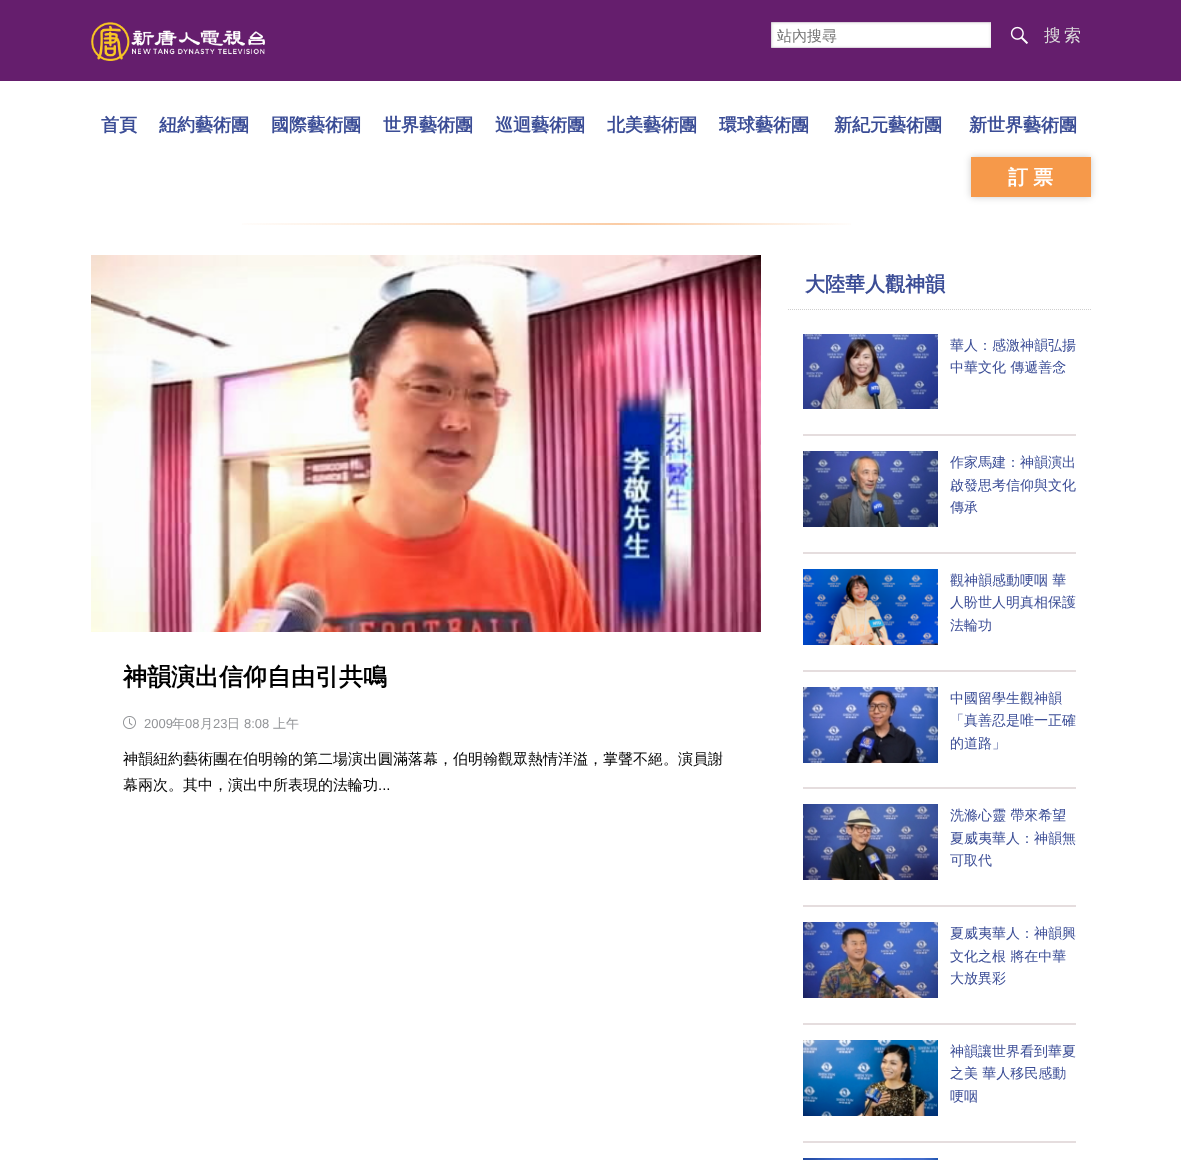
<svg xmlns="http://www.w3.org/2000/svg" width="1181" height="1160">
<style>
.a{font:500 15px WenQuanYi Zen Hei;fill:#757575}
.b{font:500 17px WenQuanYi Zen Hei;letter-spacing:3px;fill:#ddd}
.c{font:bold 18px WenQuanYi Zen Hei;fill:#3b4d96}
.d{font:bold 20px WenQuanYi Zen Hei;letter-spacing:5px;fill:#fff}
.e{font:bold 24px WenQuanYi Zen Hei;fill:#000}
.f{font:13px Liberation Sans;fill:#939598}
.g{font:500 13px WenQuanYi Zen Hei;fill:#939598}
.h{font:500 15px WenQuanYi Zen Hei;fill:#000}
.i{font:15px Liberation Sans;fill:#000}
.j{font:bold 20px WenQuanYi Zen Hei;fill:#3b4d96}
.k{font:500 14px WenQuanYi Zen Hei;fill:#3b4d96}
</style>
<defs>
<clipPath id="clip1"><path d="M777 27h208v19H777z"/></clipPath>
</defs>
<rect width="100%" height="100%" fill="#fff"/>
<path fill="#651e6d" d="M0 0h1181v81H0z"/>
<image href="1.png" x="91" y="22" width="174" height="39"/>
<image href="2.png" x="771" y="22" width="220" height="26"/>
<image href="3.png" x="1010" y="26" width="18" height="18"/>
<image href="4.png" x="242" y="223" width="609" height="2"/>
<path fill="#00000036" filter="blur(3.5px)" d="M971 157h120v40H971z"/>
<path fill="#f6994a" d="M971 157h120v40H971z"/>
<image href="5.png" x="91" y="255" width="670" height="377"/>
<image href="6.png" x="123" y="716" width="13" height="13"/>
<path fill="none" stroke="#cfcfcf" stroke-dasharray="1 1" d="M788 309.5h303"/>
<image href="7.png" x="803" y="334" width="135" height="75"/>
<path fill="#e5ddde" d="M803 434h273v2H803z"/>
<image href="8.png" x="803" y="451" width="135" height="76"/>
<path fill="#e5ddde" d="M803 552h273v2H803z"/>
<image href="9.png" x="803" y="569" width="135" height="76"/>
<path fill="#e5ddde" d="M803 670h273v2H803z"/>
<image href="10.png" x="803" y="687" width="135" height="76"/>
<path fill="#e5ddde" d="M803 787h273v2H803z"/>
<image href="11.png" x="803" y="804" width="135" height="76"/>
<path fill="#e5ddde" d="M803 905h273v2H803z"/>
<image href="12.png" x="803" y="922" width="135" height="76"/>
<path fill="#e5ddde" d="M803 1023h273v2H803z"/>
<image href="13.png" x="803" y="1040" width="135" height="76"/>
<path fill="#e5ddde" d="M803 1141h273v2H803z"/>
<image href="14.png" x="803" y="1158" width="135" height="2"/>
<g clip-path="url(#clip1)">
<text class="a" x="777" y="41">站內搜尋</text>
</g>
<text class="b" x="1044" y="41">搜索</text>
<text class="c" x="101" y="131" transform="rotate(0.1 101 131)">首頁</text>
<text class="c" x="159" y="131" transform="rotate(0.1 159 131)">紐約藝術團</text>
<text class="c" x="271" y="131" transform="rotate(0.1 271 131)">國際藝術團</text>
<text class="c" x="383" y="131" transform="rotate(0.1 383 131)">世界藝術團</text>
<text class="c" x="495" y="131" transform="rotate(0.1 495 131)">巡迴藝術團</text>
<text class="c" x="607" y="131" transform="rotate(0.1 607 131)">北美藝術團</text>
<text class="c" x="719" y="131" transform="rotate(0.1 719 131)">環球藝術團</text>
<text class="c" x="834" y="131" transform="rotate(0.1 834 131)">新紀元藝術團</text>
<text class="c" x="969" y="131" transform="rotate(0.1 969 131)">新世界藝術團</text>
<text class="d" x="1008" y="184">訂票</text>
<text class="e" x="123" y="685">神韻演出信仰自由引共鳴</text>
<text class="f" x="144" y="728">2009</text>
<text class="g" x="172" y="728">年</text>
<text class="f" x="185" y="728">08</text>
<text class="g" x="200" y="728">月</text>
<text class="f" x="213" y="728">23</text>
<text class="g" x="227" y="728">日</text>
<text class="f" x="244" y="728">8:08</text>
<text class="g" x="273" y="728">上午</text>
<text class="h" x="123" y="764">神韻紐約藝術團在伯明翰的第二場演出圓滿落幕，伯明翰觀眾熱情洋溢，掌聲不絕。演員謝</text>
<text class="h" x="123" y="790">幕兩次。其中，演出中所表現的法輪功</text>
<text class="i" x="378" y="790">...</text>
<text class="j" x="805" y="291">大陸華人觀神韻</text>
<text class="k" x="950" y="350">華人：感激神韻弘揚</text>
<text class="k" x="950" y="372">中華文化 傳遞善念</text>
<text class="k" x="950" y="467">作家馬建：神韻演出</text>
<text class="k" x="950" y="490">啟發思考信仰與文化</text>
<text class="k" x="950" y="512">傳承</text>
<text class="k" x="950" y="585">觀神韻感動哽咽 華</text>
<text class="k" x="950" y="607">人盼世人明真相保護</text>
<text class="k" x="950" y="630">法輪功</text>
<text class="k" x="950" y="703">中國留學生觀神韻</text>
<text class="k" x="950" y="725">「真善忍是唯一正確</text>
<text class="k" x="950" y="748">的道路」</text>
<text class="k" x="950" y="820">洗滌心靈 帶來希望</text>
<text class="k" x="950" y="843">夏威夷華人：神韻無</text>
<text class="k" x="950" y="865">可取代</text>
<text class="k" x="950" y="938">夏威夷華人：神韻興</text>
<text class="k" x="950" y="961">文化之根 將在中華</text>
<text class="k" x="950" y="983">大放異彩</text>
<text class="k" x="950" y="1056">神韻讓世界看到華夏</text>
<text class="k" x="950" y="1078">之美 華人移民感動</text>
<text class="k" x="950" y="1101">哽咽</text>
</svg>
